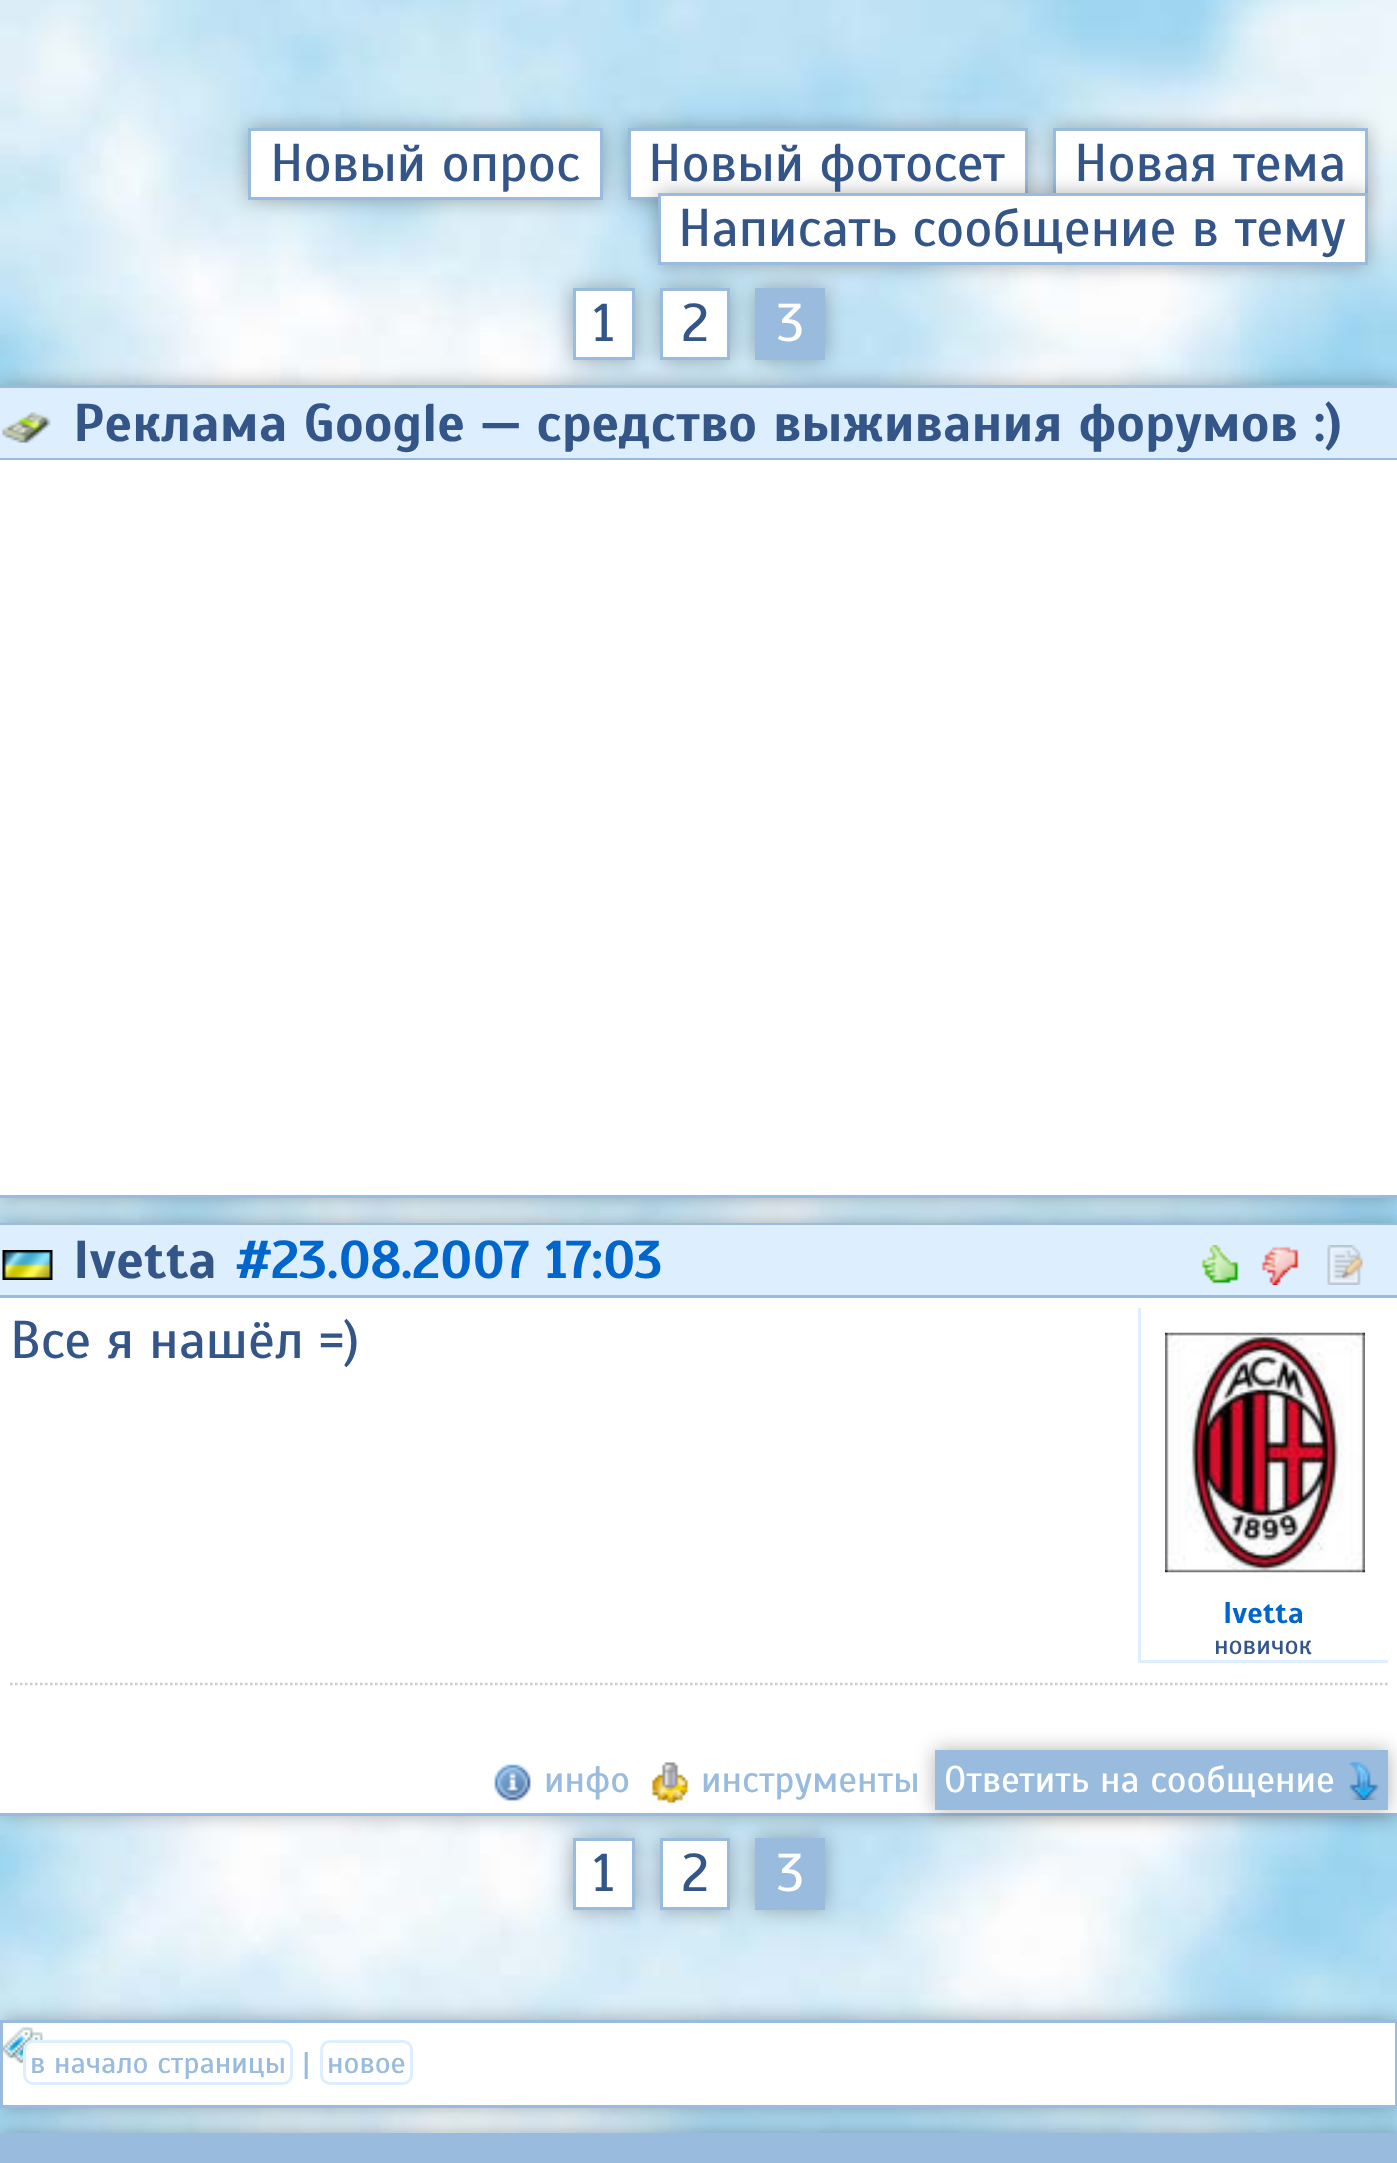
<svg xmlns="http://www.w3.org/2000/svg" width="1397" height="2163">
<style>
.a{font:53.3px Scada;fill:#358}
.b{font:53.3px Scada;fill:#fff}
.c{font:bold 53.3px Scada;fill:#358}
.d{font:bold 53.3px Scada;fill:#06c}
.e{font:bold 30px Scada;fill:#06c}
.f{font:26.5px Scada;fill:#358}
.g{font:37.25px Scada;fill:#9bd}
.h{font:37.25px Scada;fill:#fff}
.i{font:30px Scada;fill:#9bd}
</style>
<rect width="100%" height="100%" fill="#fff"/>
<image href="1.png" x="0" y="0" width="1397" height="2133"/>
<path fill="#0000004d" filter="blur(10px)" d="M248 128h355v72H248z"/>
<path fill="#fff" stroke="#9bd" stroke-width="3" d="M249.5 129.5h352v69H249.5z"/>
<path fill="#0000004d" filter="blur(10px)" d="M628 128h400v72H628z"/>
<path fill="#fff" stroke="#9bd" stroke-width="3" d="M629.5 129.5h397v69H629.5z"/>
<path fill="#0000004d" filter="blur(10px)" d="M1053 128h315v72H1053z"/>
<path fill="#fff" d="M1056 131h309v62H1056z"/>
<path fill="none" stroke="#9bd" stroke-width="3" d="M1054.5 129.5h312v69H1054.5z"/>
<path fill="#0000004d" filter="blur(10px)" d="M658 193h710v72H658z"/>
<path fill="#fff" stroke="#9bd" stroke-width="3" d="M659.5 194.5h707v69H659.5z"/>
<path fill="#0000004d" filter="blur(10px)" d="M0 385h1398v813H0z"/>
<path fill="#def" d="M0 388h1397v70H0z"/>
<path fill="#9bd" d="M0 385h1397v3H0z"/>
<path fill="#0000004d" filter="blur(10px)" d="M573 288h62v72H573z"/>
<path fill="#fff" stroke="#9bd" stroke-width="3" d="M574.5 289.5h59v69H574.5z"/>
<path fill="#0000004d" filter="blur(10px)" d="M660 288h70v72H660z"/>
<path fill="#fff" stroke="#9bd" stroke-width="3" d="M661.5 289.5h67v69H661.5z"/>
<path fill="#0000004d" filter="blur(10px)" d="M755 288h70v72H755z"/>
<path fill="#9bd" d="M755 288h70v72H755z"/>
<path fill="#9bd" d="M0 1195h1397v3H0z"/>
<path fill="#9bd" d="M0 458h1397v2H0z"/>
<image href="2.png" x="2" y="412" width="49" height="31"/>
<path fill="#0000004d" filter="blur(10px)" d="M0 1223h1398v592H0z"/>
<path fill="#fff" d="M0 460h1397v735H0z"/>
<path fill="#9bd" d="M0 1223h1397v2H0z"/>
<path fill="#9bd" d="M0 1813h1397v3H0z"/>
<path fill="#def" d="M0 1225h1397v70H0z"/>
<path fill="#9bd" d="M0 1295h1397v3H0z"/>
<image href="3.png" x="2" y="1250" width="51" height="30"/>
<image href="4.png" x="1201" y="1245" width="38" height="39"/>
<image href="5.png" x="1261" y="1246" width="38" height="39"/>
<image href="6.png" x="1327" y="1245" width="36" height="40"/>
<path fill="#fff" d="M0 1298h1397v515H0z"/>
<path fill="#def" d="M1138 1660h250v3H1138z"/>
<path fill="#def" d="M1138 1308h3v355H1138z"/>
<image href="7.png" x="1165" y="1332" width="200" height="241"/>
<path fill="none" stroke="#ccc" stroke-width="2.5" stroke-dasharray="2.5 2.5" d="M10 1684h1377.5"/>
<image href="8.png" x="494" y="1764" width="37" height="37"/>
<image href="9.png" x="651" y="1762" width="38" height="41"/>
<path fill="#0000004d" filter="blur(10px)" d="M935 1750h453v60H935z"/>
<path fill="#9bd" d="M935 1750h453v60H935z"/>
<image href="10.png" x="1349" y="1761" width="30" height="39"/>
<path fill="#0000004d" filter="blur(10px)" d="M573 1838h62v72H573z"/>
<path fill="#fff" stroke="#9bd" stroke-width="3" d="M574.5 1839.5h59v69H574.5z"/>
<path fill="#0000004d" filter="blur(10px)" d="M660 1838h70v72H660z"/>
<path fill="#fff" stroke="#9bd" stroke-width="3" d="M661.5 1839.5h67v69H661.5z"/>
<path fill="#0000004d" filter="blur(10px)" d="M755 1838h70v72H755z"/>
<path fill="#9bd" d="M755 1838h70v72H755z"/>
<path fill="#0000004d" filter="blur(10px)" d="M0 2020h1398v88H0z"/>
<path fill="#fff" d="M3 2023h1392v82H3z"/>
<image href="11.png" x="3" y="2027" width="40" height="37"/>
<path fill="none" stroke="#9bd" stroke-width="3" d="M1.5 2021.5h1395v85H1.5z"/>
<rect fill="#fff" stroke="#def" stroke-width="3" x="24.5" y="2041.5" width="267" height="42" rx="8.5"/>
<rect fill="none" stroke="#def" stroke-width="3" x="321.5" y="2041.5" width="90" height="42" rx="8.5"/>
<path fill="#0000004d" filter="blur(10px)" d="M0 2133h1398v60H0z"/>
<path fill="none" stroke="#9bd" stroke-width="3" d="M1.5 2134.5h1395v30H1.5z"/>
<path fill="#9bd" d="M3 2136h1392v27H3z"/>
<text class="a" x="270" y="181">Новый опрос</text>
<text class="a" x="648" y="181">Новый фотосет</text>
<text class="a" x="1074" y="181">Новая тема</text>
<text class="a" x="678" y="246">Написать сообщение в тему</text>
<text class="a" x="593" y="341">1</text>
<text class="a" x="682" y="341">2</text>
<text class="b" x="777" y="341">3</text>
<text class="c" x="73" y="441">Реклама Google — средство выживания форумов :)</text>
<text class="c" x="73" y="1278">Ivetta</text>
<text class="d" x="236" y="1278">#23.08.2007 17:03</text>
<text class="a" x="10" y="1358">Все я нашёл =)</text>
<text class="e" x="1223" y="1623">Ivetta</text>
<text class="f" x="1214" y="1654">новичок</text>
<text class="g" x="544" y="1792">инфо</text>
<text class="g" x="701" y="1792">инструменты</text>
<text class="h" x="944" y="1792">Ответить на сообщение</text>
<text class="a" x="593" y="1891">1</text>
<text class="a" x="682" y="1891">2</text>
<text class="b" x="777" y="1891">3</text>
<text class="i" x="30" y="2073">в начало страницы</text>
<text class="i" x="302" y="2073">|</text>
<text class="i" x="327" y="2073">новое</text>
</svg>
